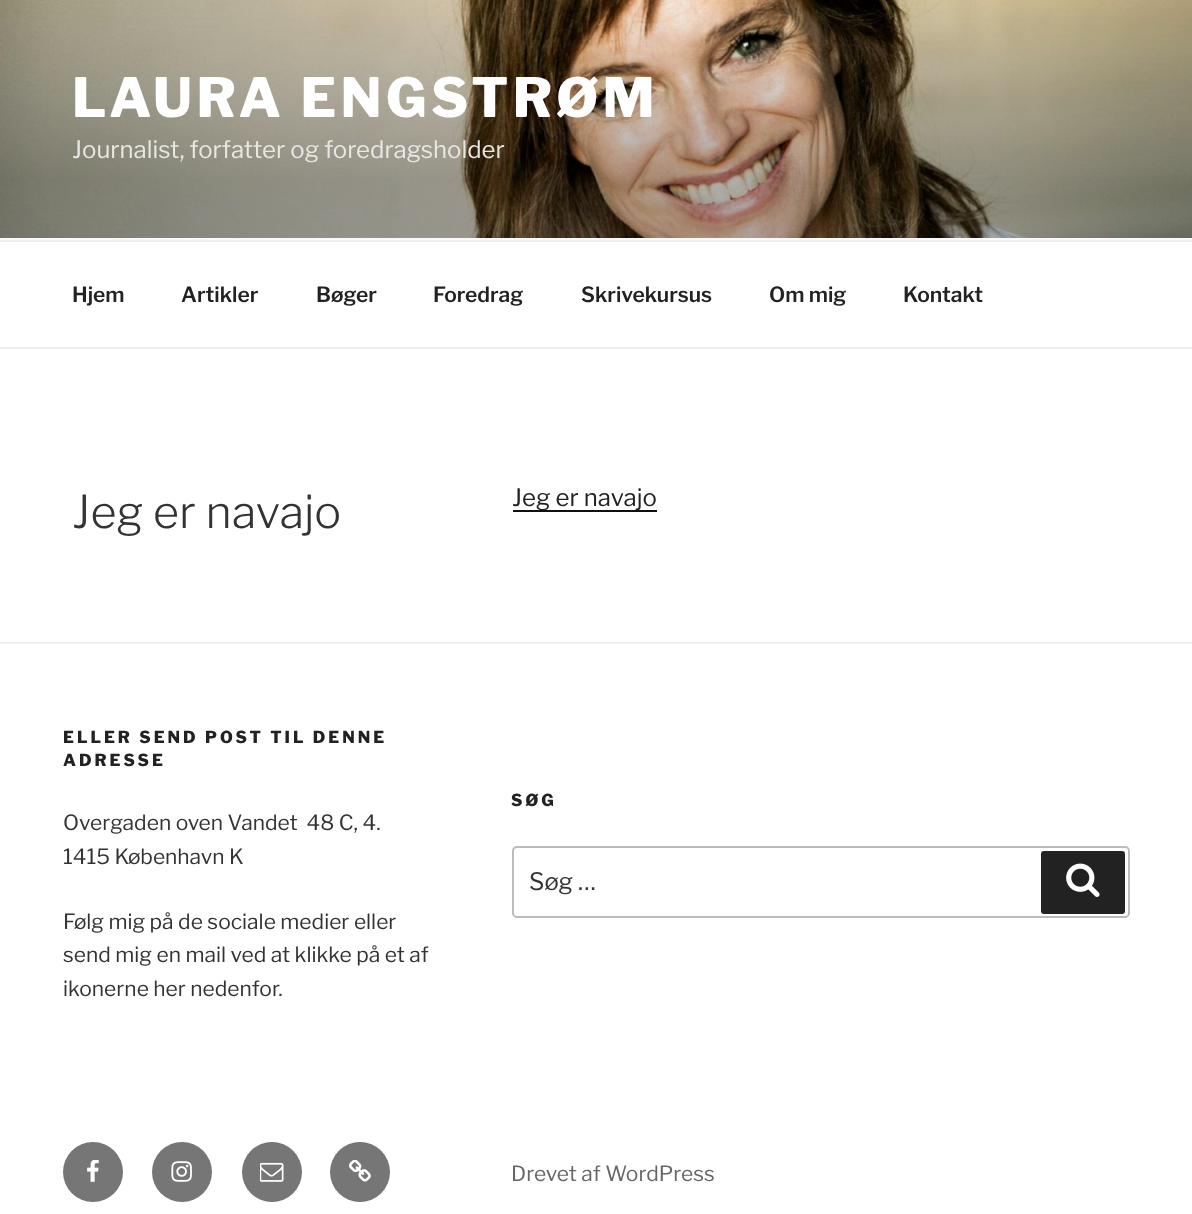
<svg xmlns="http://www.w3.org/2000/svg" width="1192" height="1214">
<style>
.a{font:800 54px Libre Franklin;letter-spacing:4.25px;fill:#fff}
.b{font:24px Libre Franklin;fill:#e8e7e4}
.c{font:600 21px Libre Franklin;fill:#222}
.d{font:300 45px Libre Franklin;fill:#333}
.e{font:24px Libre Franklin;fill:#222}
.f{font:800 16.5px Libre Franklin;letter-spacing:3px;fill:#222}
.g{font:21px Libre Franklin;fill:#333}
.h{font:24px Libre Franklin;fill:#333}
.i{font:21px Libre Franklin;fill:#666}
</style>
<rect width="100%" height="100%" fill="#fff"/>
<path fill="#fafafa" d="M0 238h1192v2H0z"/>
<image href="1.png" x="0" y="0" width="1192" height="238"/>
<path fill="#eee" d="M0 240h1192v2H0z"/>
<path fill="#eee" d="M0 347h1192v2H0z"/>
<path fill="#0f0f0f" d="M513 510h144v2H513z"/>
<path fill="#eee" d="M0 642h1192v2H0z"/>
<rect fill="none" stroke="#bbb" stroke-width="2" x="513" y="847" width="616" height="70" rx="4"/>
<rect fill="#222" x="1041" y="851" width="84" height="63" rx="3"/>
<image href="2.png" x="1066" y="863" width="34" height="34"/>
<circle fill="#767676" cx="93" cy="1172" r="30"/>
<image href="3.png" x="87" y="1160" width="12" height="22"/>
<circle fill="#767676" cx="182" cy="1172" r="30"/>
<image href="4.png" x="171" y="1161" width="21" height="21"/>
<circle fill="#767676" cx="272" cy="1172" r="30"/>
<image href="5.png" x="260" y="1162" width="24" height="20"/>
<circle fill="#767676" cx="360" cy="1172" r="30"/>
<image href="6.png" x="349" y="1160" width="22" height="22"/>
<text class="a" x="72" y="117">LAURA ENGSTRØM</text>
<text class="b" x="72" y="158">Journalist, forfatter og foredragsholder</text>
<text class="c" x="72" y="302">Hjem</text>
<text class="c" x="181" y="302">Artikler</text>
<text class="c" x="316" y="302">Bøger</text>
<text class="c" x="433" y="302">Foredrag</text>
<text class="c" x="581" y="302">Skrivekursus</text>
<text class="c" x="769" y="302">Om mig</text>
<text class="c" x="903" y="302">Kontakt</text>
<text class="d" x="72" y="528">Jeg er navajo</text>
<text class="e" x="512" y="506">Jeg er navajo</text>
<text class="f" x="63" y="743">ELLER SEND POST TIL DENNE</text>
<text class="f" x="63" y="766">ADRESSE</text>
<text class="g" xml:space="preserve" x="63" y="830">Overgaden oven Vandet  48 C, 4.</text>
<text class="g" x="63" y="864">1415 København K</text>
<text class="g" x="63" y="929">Følg mig på de sociale medier eller</text>
<text class="g" x="63" y="962">send mig en mail ved at klikke på et af</text>
<text class="g" x="63" y="996">ikonerne her nedenfor.</text>
<text class="f" x="511" y="806">SØG</text>
<text class="h" x="529" y="890">Søg …</text>
<text class="i" x="511" y="1181">Drevet af WordPress</text>
</svg>
